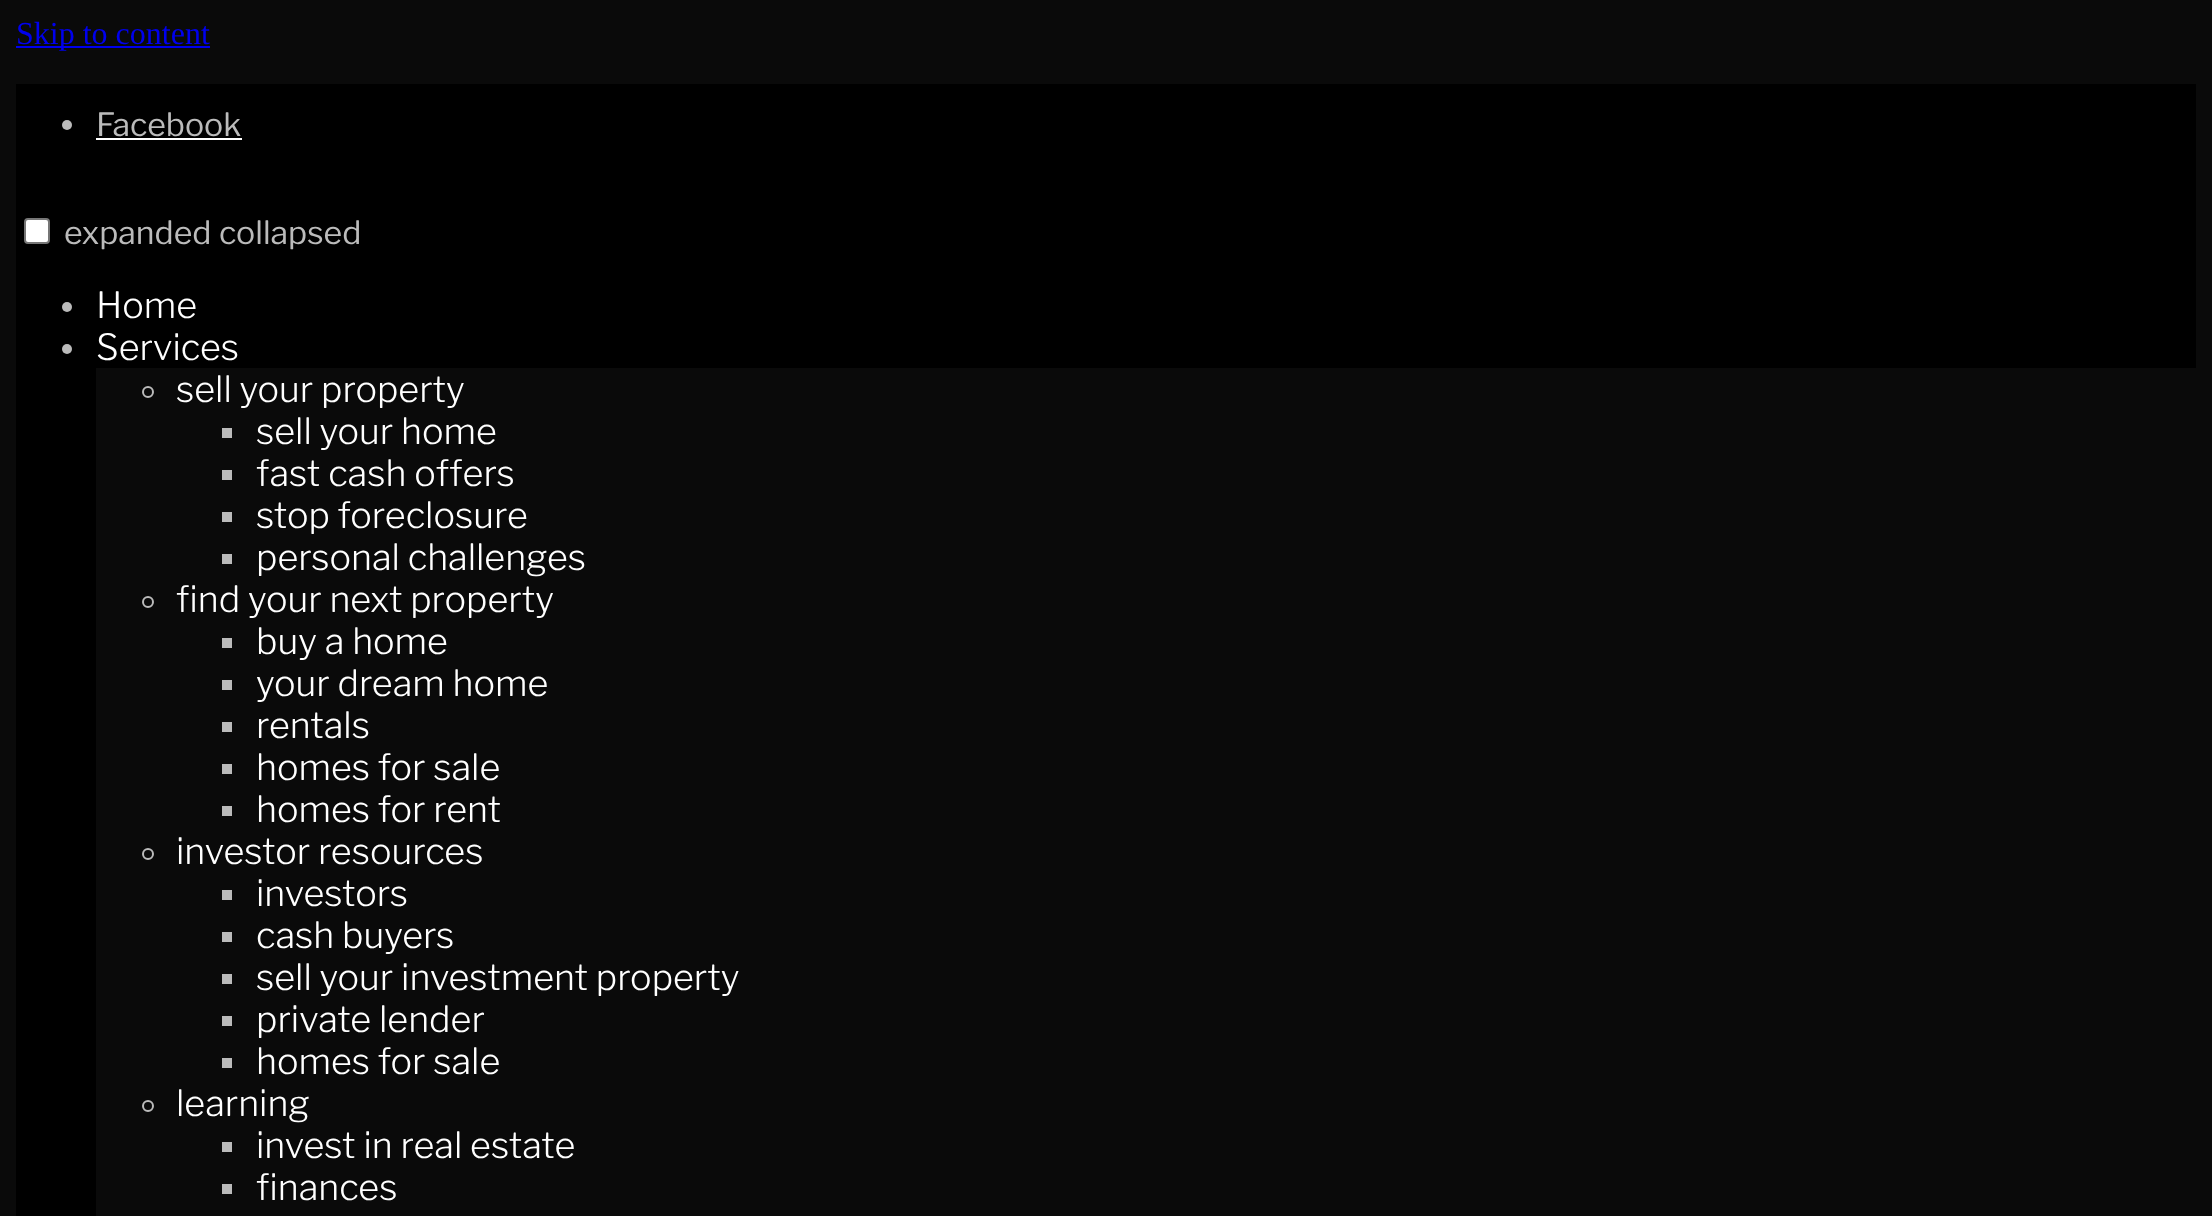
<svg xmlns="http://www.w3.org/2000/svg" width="2212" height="1216">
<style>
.a{font:32px Liberation Serif;fill:#00e}
.b{font:32px Libre Franklin;fill:#bbb}
.c{font:300 36px Libre Franklin;fill:#fff}
</style>
<rect width="100%" height="100%" fill="#0a0a0a"/>
<path fill="#00e" d="M16 46h194v2H16z"/>
<path fill="#000" d="M16 84h2180v1132H16z"/>
<circle fill="#bbb" cx="67" cy="125" r="5"/>
<path fill="#fff" d="M96 138h146v2H96z"/>
<rect fill="#fff" stroke="#767676" stroke-width="2" x="25" y="219" width="24" height="24" rx="3"/>
<circle fill="#bbb" cx="67" cy="307" r="5"/>
<circle fill="#bbb" cx="67" cy="349" r="5"/>
<path fill="#0a0a0a" d="M96 368h2100v848H96z"/>
<circle fill="none" stroke="#bbb" stroke-width="2" cx="148" cy="392" r="5"/>
<path fill="#bbb" d="M222 428h10v10H222z"/>
<path fill="#bbb" d="M222 470h10v10H222z"/>
<path fill="#bbb" d="M222 512h10v10H222z"/>
<path fill="#bbb" d="M222 554h10v10H222z"/>
<circle fill="none" stroke="#bbb" stroke-width="2" cx="148" cy="602" r="5"/>
<path fill="#bbb" d="M222 638h10v10H222z"/>
<path fill="#bbb" d="M222 680h10v10H222z"/>
<path fill="#bbb" d="M222 722h10v10H222z"/>
<path fill="#bbb" d="M222 764h10v10H222z"/>
<path fill="#bbb" d="M222 806h10v10H222z"/>
<circle fill="none" stroke="#bbb" stroke-width="2" cx="148" cy="854" r="5"/>
<path fill="#bbb" d="M222 890h10v10H222z"/>
<path fill="#bbb" d="M222 932h10v10H222z"/>
<path fill="#bbb" d="M222 974h10v10H222z"/>
<path fill="#bbb" d="M222 1016h10v10H222z"/>
<path fill="#bbb" d="M222 1058h10v10H222z"/>
<circle fill="none" stroke="#bbb" stroke-width="2" cx="148" cy="1106" r="5"/>
<path fill="#bbb" d="M222 1142h10v10H222z"/>
<path fill="#bbb" d="M222 1184h10v10H222z"/>
<text class="a" x="16" y="44">Skip to content</text>
<text class="b" x="96" y="136">Facebook</text>
<text class="b" x="64" y="244">expanded</text>
<text class="b" x="219" y="244">collapsed</text>
<text class="c" x="96" y="318">Home</text>
<text class="c" x="96" y="360">Services</text>
<text class="c" x="176" y="402">sell your property</text>
<text class="c" x="256" y="444">sell your home</text>
<text class="c" x="256" y="486">fast cash offers</text>
<text class="c" x="256" y="528">stop foreclosure</text>
<text class="c" x="256" y="570">personal challenges</text>
<text class="c" x="176" y="612">find your next property</text>
<text class="c" x="256" y="654">buy a home</text>
<text class="c" x="256" y="696">your dream home</text>
<text class="c" x="256" y="738">rentals</text>
<text class="c" x="256" y="780">homes for sale</text>
<text class="c" x="256" y="822">homes for rent</text>
<text class="c" x="176" y="864">investor resources</text>
<text class="c" x="256" y="906">investors</text>
<text class="c" x="256" y="948">cash buyers</text>
<text class="c" x="256" y="990">sell your investment property</text>
<text class="c" x="256" y="1032">private lender</text>
<text class="c" x="256" y="1074">homes for sale</text>
<text class="c" x="176" y="1116">learning</text>
<text class="c" x="256" y="1158">invest in real estate</text>
<text class="c" x="256" y="1200">finances</text>
</svg>
